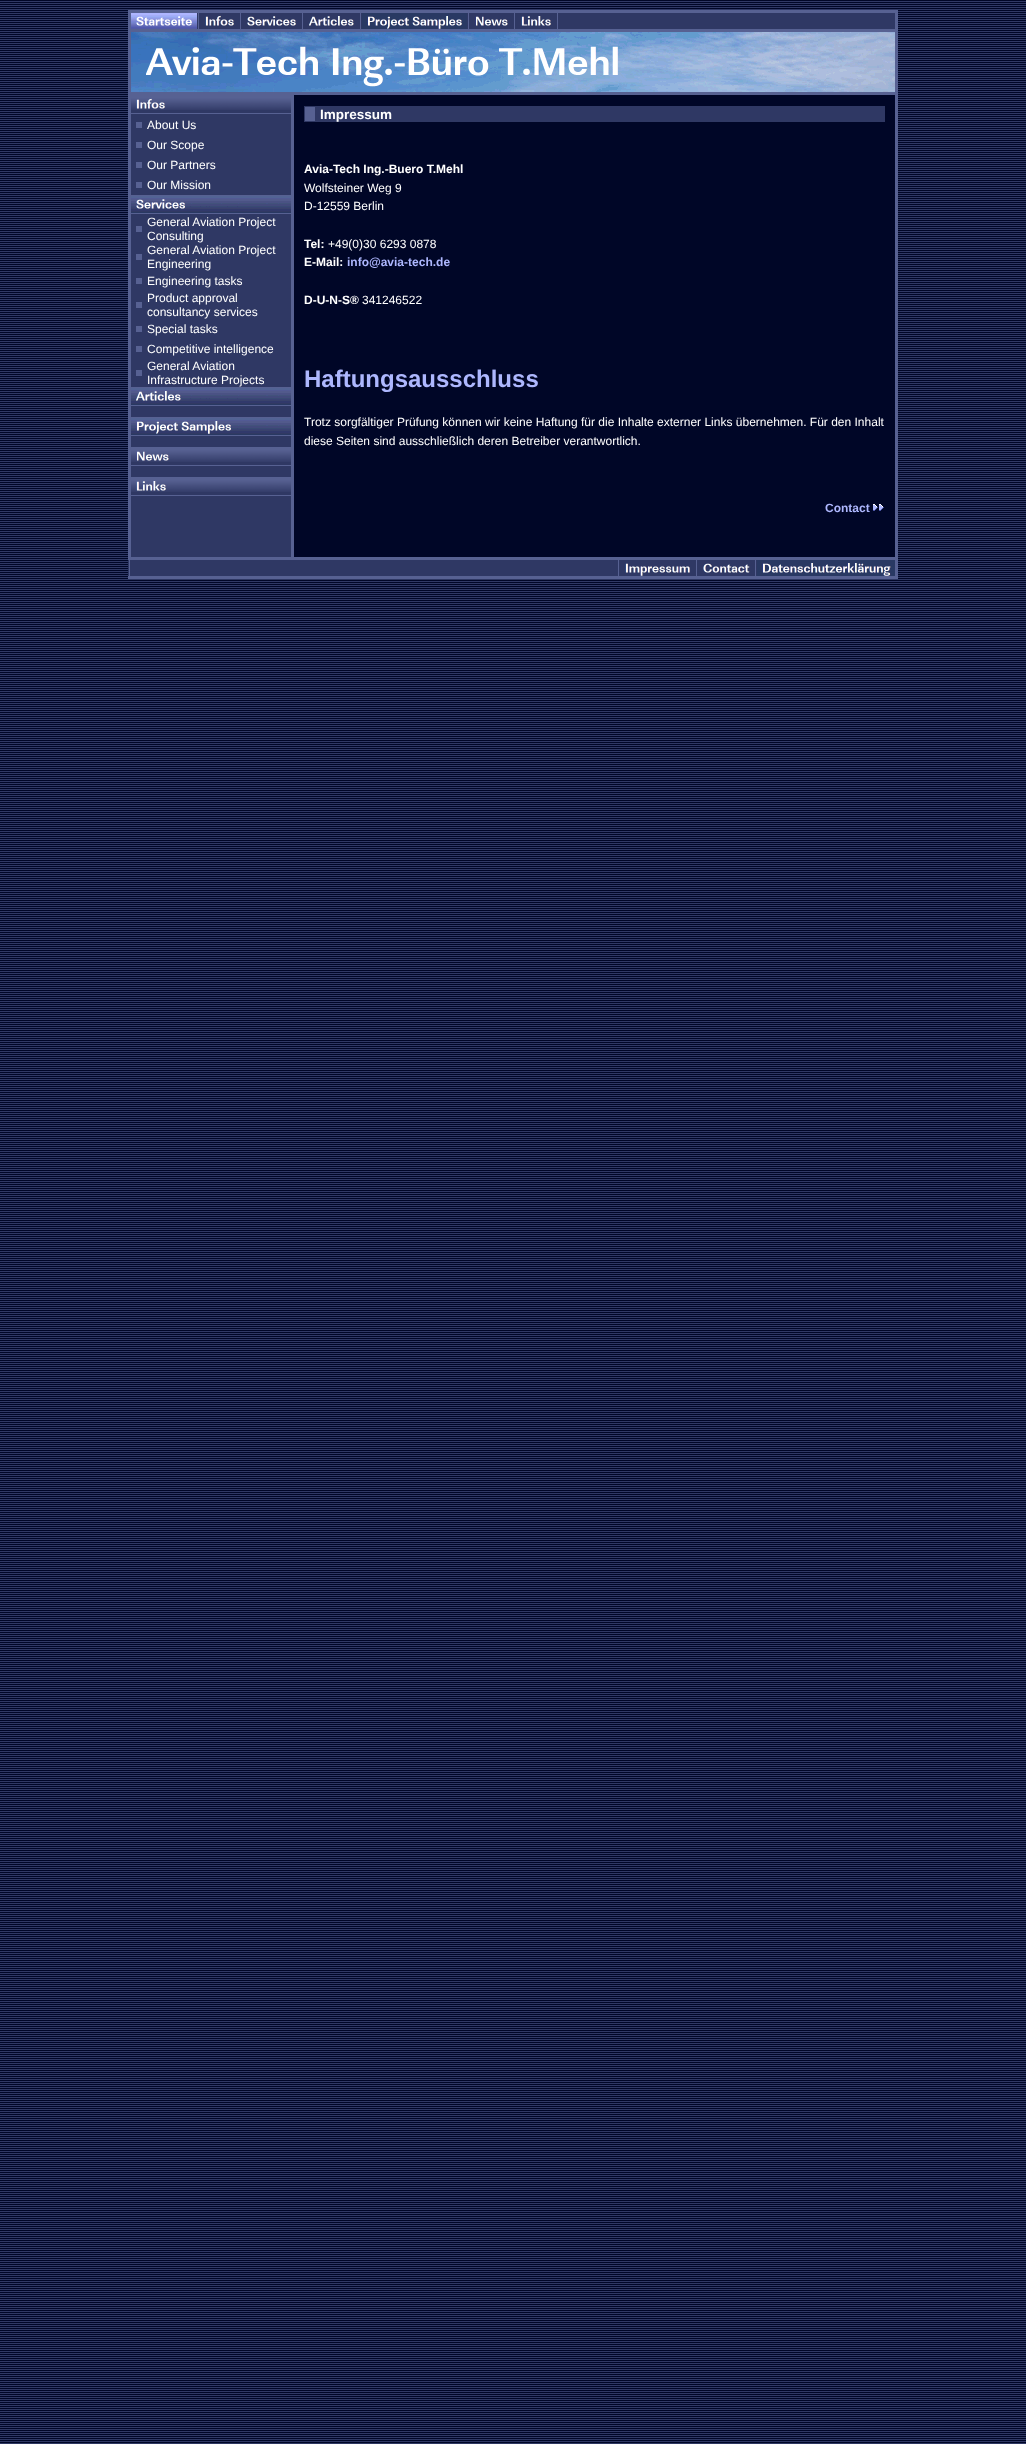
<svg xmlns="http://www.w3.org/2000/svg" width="1026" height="2444">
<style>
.a{font:12px Liberation Sans;fill:#fff}
.b{font:bold 13.5px Liberation Sans;fill:#fff}
.c{font:bold 12px Liberation Sans;fill:#fff}
.d{font:bold 12px Liberation Sans;fill:#adb7fe}
.e{font:bold 24px Liberation Sans;fill:#adb7fe}
</style>
<rect width="100%" height="100%" fill="#000627"/>
<image href="1.png" x="0" y="1" width="1026" height="2443"/>
<path fill="#576192" d="M128 10h770v3H128z"/>
<path fill="#576192" d="M128 13h3v16H128z"/>
<path fill="#2f3864" d="M197 14h698v15H197z"/>
<image href="2.png" x="131" y="13" width="66" height="16"/>
<path fill="#576192" d="M198 13h1v16H198z"/>
<image href="3.png" x="205" y="15" width="29" height="11"/>
<path fill="#576192" d="M240 13h1v16H240z"/>
<image href="4.png" x="247" y="16" width="49" height="10"/>
<path fill="#576192" d="M302 13h1v16H302z"/>
<image href="5.png" x="309" y="16" width="45" height="10"/>
<path fill="#576192" d="M360 13h1v16H360z"/>
<image href="6.png" x="362" y="13" width="105" height="16"/>
<path fill="#576192" d="M468 13h1v16H468z"/>
<image href="7.png" x="475" y="16" width="33" height="10"/>
<path fill="#576192" d="M514 13h1v16H514z"/>
<image href="8.png" x="521" y="16" width="30" height="10"/>
<path fill="#576192" d="M557 13h1v16H557z"/>
<path fill="#576192" d="M895 13h3v16H895z"/>
<path fill="#576192" d="M128 29h770v3H128z"/>
<path fill="#576192" d="M128 32h3v60H128z"/>
<image href="9.png" x="131" y="32" width="764" height="60"/>
<path fill="#576192" d="M895 32h3v60H895z"/>
<path fill="#576192" d="M128 92h770v3H128z"/>
<path fill="#576192" d="M128 95h3v462H128z"/>
<path fill="#2f3864" d="M131 110h160v447H131z"/>
<path fill="#576192" d="M131 95h160v1H131z"/>
<image href="10.png" x="131" y="96" width="160" height="14"/>
<path fill="#576192" d="M131 113h160v1H131z"/>
<path fill="#576192" d="M136 122h6v6H136z"/>
<path fill="#576192" d="M136 142h6v6H136z"/>
<path fill="#576192" d="M136 162h6v6H136z"/>
<path fill="#576192" d="M136 182h6v6H136z"/>
<path fill="#576192" d="M131 195h160v1H131z"/>
<image href="11.png" x="131" y="196" width="160" height="17"/>
<path fill="#576192" d="M131 213h160v1H131z"/>
<path fill="#576192" d="M136 226h6v6H136z"/>
<path fill="#576192" d="M136 254h6v6H136z"/>
<path fill="#576192" d="M136 278h6v6H136z"/>
<path fill="#576192" d="M136 302h6v6H136z"/>
<path fill="#576192" d="M136 326h6v6H136z"/>
<path fill="#576192" d="M136 346h6v6H136z"/>
<path fill="#576192" d="M136 370h6v6H136z"/>
<path fill="#576192" d="M131 387h160v1H131z"/>
<image href="12.png" x="131" y="388" width="160" height="17"/>
<path fill="#576192" d="M131 405h160v1H131z"/>
<path fill="#576192" d="M131 417h160v1H131z"/>
<image href="13.png" x="131" y="418" width="160" height="17"/>
<path fill="#576192" d="M131 435h160v1H131z"/>
<path fill="#576192" d="M131 447h160v1H131z"/>
<image href="14.png" x="131" y="448" width="160" height="14"/>
<path fill="#576192" d="M131 465h160v1H131z"/>
<path fill="#576192" d="M131 477h160v1H131z"/>
<image href="15.png" x="131" y="478" width="160" height="14"/>
<path fill="#576192" d="M131 495h160v1H131z"/>
<path fill="#576192" d="M291 95h3v462H291z"/>
<path fill="#000627" d="M294 95h601v461H294z"/>
<path fill="#2f3864" d="M304 106h581v16H304z"/>
<path fill="#576192" d="M305 107h10v14H305z"/>
<image href="16.png" x="873" y="504" width="11" height="7"/>
<path fill="#576192" d="M895 95h3v462H895z"/>
<path fill="#576192" d="M128 557h770v3H128z"/>
<path fill="#2f3864" d="M128 560h3v16H128z"/>
<path fill="#576192" d="M129 560h1v16H129z"/>
<path fill="#2f3864" d="M131 560h626v15H131z"/>
<path fill="#576192" d="M618 560h1v16H618z"/>
<image href="17.png" x="625" y="563" width="65" height="13"/>
<path fill="#576192" d="M696 560h1v16H696z"/>
<image href="18.png" x="703" y="563" width="47" height="10"/>
<path fill="#576192" d="M755 560h1v16H755z"/>
<image href="19.png" x="757" y="560" width="138" height="16"/>
<path fill="#576192" d="M895 560h3v16H895z"/>
<path fill="#576192" d="M128 576h770v3H128z"/>
<text class="a" x="147" y="129">About Us</text>
<text class="a" x="147" y="149">Our Scope</text>
<text class="a" x="147" y="169">Our Partners</text>
<text class="a" x="147" y="189">Our Mission</text>
<text class="a" x="147" y="226">General Aviation Project</text>
<text class="a" x="147" y="240">Consulting</text>
<text class="a" x="147" y="254">General Aviation Project</text>
<text class="a" x="147" y="268">Engineering</text>
<text class="a" x="147" y="285">Engineering tasks</text>
<text class="a" x="147" y="302">Product approval</text>
<text class="a" x="147" y="316">consultancy services</text>
<text class="a" x="147" y="333">Special tasks</text>
<text class="a" x="147" y="353">Competitive intelligence</text>
<text class="a" x="147" y="370">General Aviation</text>
<text class="a" x="147" y="384">Infrastructure Projects</text>
<text class="b" x="320" y="119">Impressum</text>
<text class="c" x="304" y="173">Avia-Tech Ing.-Buero T.Mehl</text>
<text class="a" x="304" y="192">Wolfsteiner Weg 9</text>
<text class="a" x="304" y="210">D-12559 Berlin</text>
<text class="c" x="304" y="248">Tel:</text>
<text class="a" x="328" y="248">+49(0)30 6293 0878</text>
<text class="c" x="304" y="266">E-Mail:</text>
<text class="d" x="347" y="266">info@avia-tech.de</text>
<text class="c" x="304" y="304">D-U-N-S®</text>
<text class="a" x="362" y="304">341246522</text>
<text class="e" x="304" y="387">Haftungsausschluss</text>
<text class="a" x="304" y="426">Trotz sorgfältiger Prüfung können wir keine Haftung für die Inhalte externer Links übernehmen. Für den Inhalt</text>
<text class="a" x="304" y="445">diese Seiten sind ausschließlich deren Betreiber verantwortlich.</text>
<text class="d" x="825" y="512">Contact</text>
</svg>
